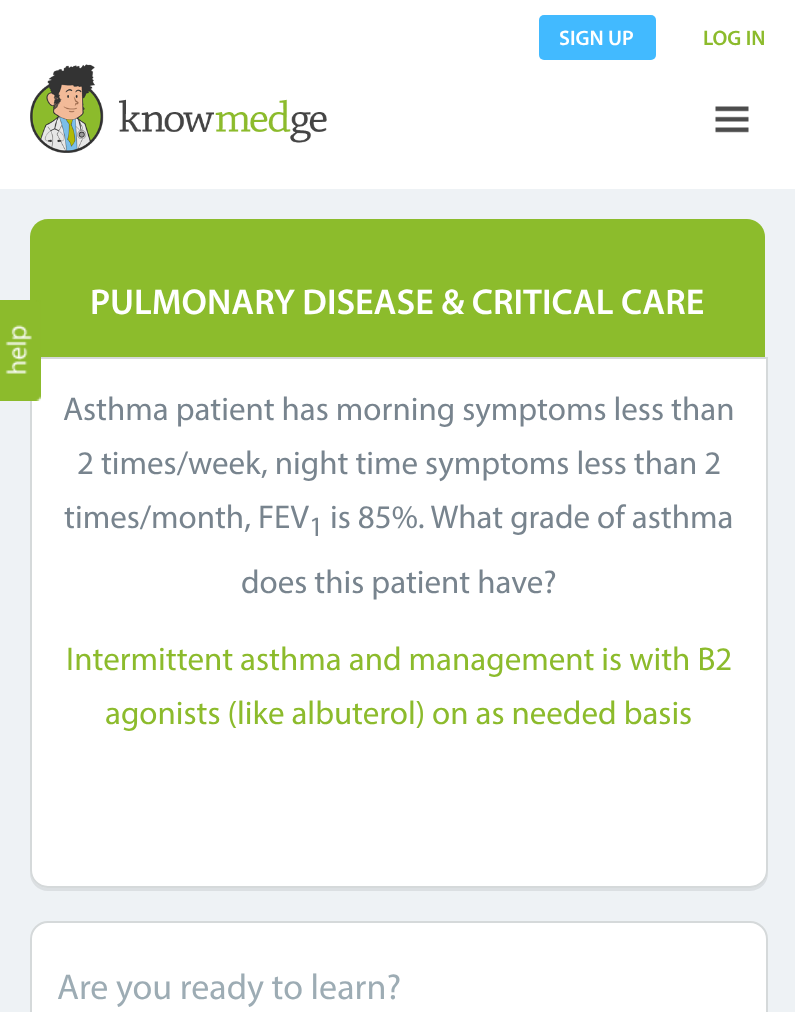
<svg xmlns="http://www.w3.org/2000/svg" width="795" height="1012">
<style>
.a{font:600 21px Myriad;fill:#fff}
.b{font:600 21px Myriad;fill:#8cbb2c}
.c{font:600 36px Myriad;fill:#fff}
.d{font:33px Myriad;fill:#78848e}
.e{font:28px Myriad;fill:#78848e}
.f{font:33px Myriad;fill:#8cbb2c}
.g{font:36px Myriad;fill:#9dacb4}
</style>
<rect width="100%" height="100%" fill="#eef2f5"/>
<path fill="#fff" d="M0 0h795v189H0z"/>
<rect fill="#42baff" x="539" y="15" width="117" height="45" rx="5"/>
<image href="1.png" x="30" y="64" width="297" height="89"/>
<image href="2.png" x="715" y="106" width="34" height="27"/>
<path fill="#8cbc2c" d="M48 219h699c10 0 18 8 18 18v120h-735v-120c0-10 8-18 18-18z"/>
<path fill="#dbdfe2" d="M30 870v3c0 10 8 18 18 18h702c10 0 18-8 18-18v-3c0 10-8 18-18 18h-702c-10 0-18-8-18-18z"/>
<path fill="#fff" stroke="#d5d9da" stroke-width="2" d="M31 358h736v512c0 9.5-7.5 17-17 17h-702c-9.5 0-17-7.5-17-17z"/>
<image href="3.png" x="0" y="300" width="41" height="101"/>
<rect fill="#fff" stroke="#d5d9da" stroke-width="2" x="31" y="922" width="736" height="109" rx="17"/>
<text class="a" x="559" y="45">SIGN UP</text>
<text class="b" x="703" y="45">LOG IN</text>
<text class="c" x="90" y="314">PULMONARY DISEASE &amp; CRITICAL CARE</text>
<text class="d" x="63" y="420">Asthma patient has morning symptoms less than</text>
<text class="d" x="77" y="474">2 times/week, night time symptoms less than 2</text>
<text class="d" x="64" y="528">times/month, FEV</text>
<text class="e" x="309" y="536">1</text>
<text class="d" x="330" y="528">is 85%. What grade of asthma</text>
<text class="d" x="241" y="593">does this patient have?</text>
<text class="f" x="66" y="670">Intermittent asthma and management is with B2</text>
<text class="f" x="105" y="724">agonists (like albuterol) on as needed basis</text>
<text class="g" x="57" y="999">Are you ready to learn?</text>
</svg>
